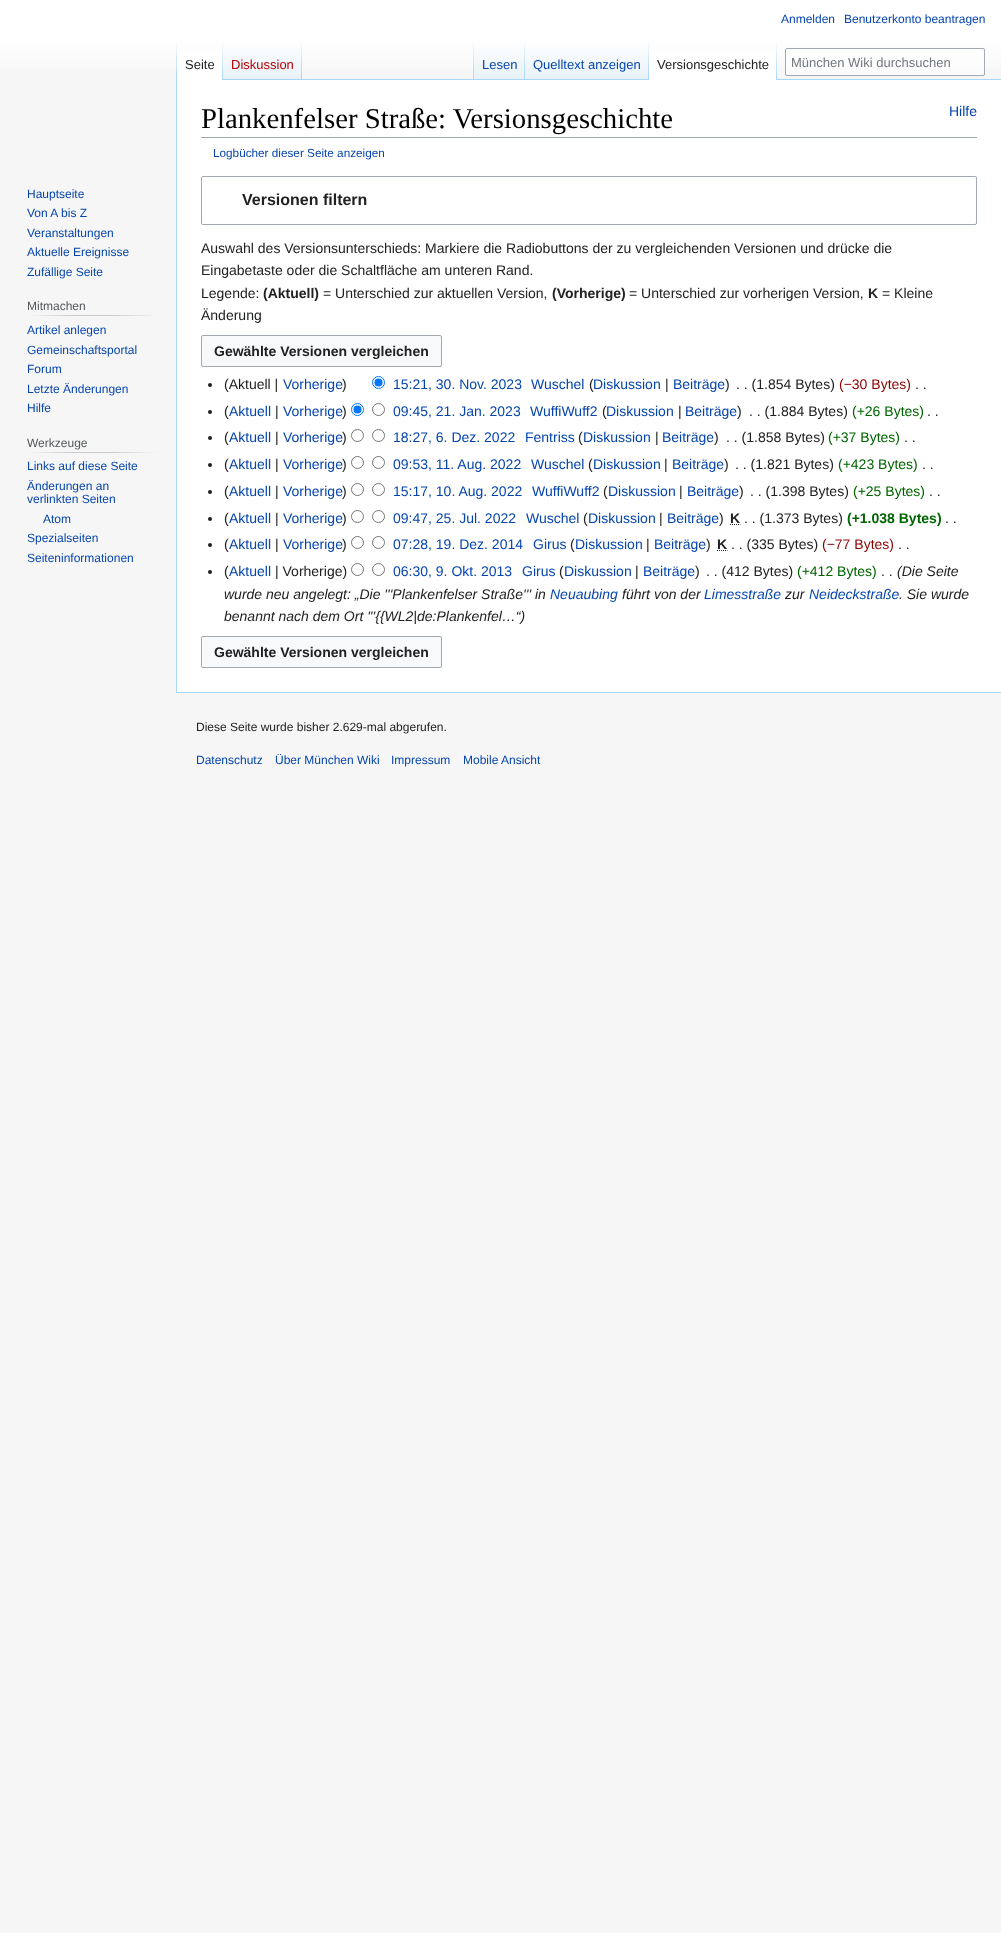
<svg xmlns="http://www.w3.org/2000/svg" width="1001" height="1933">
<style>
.a{font:12px Liberation Sans;fill:#0645ad}
.b{font:13px Liberation Sans;fill:#202122}
.c{font:13px Liberation Sans;fill:#ba0000}
.d{font:13px Liberation Sans;fill:#0645ad}
.e{font:13px Liberation Sans;fill:#72777d}
.f{font:12px Liberation Sans;fill:#54595d}
.g{font:28.75px Liberation Serif;fill:#000}
.h{font:14px Liberation Sans;fill:#0645ad}
.i{font:11.75px Liberation Sans;fill:#0645ad}
.j{font:bold 16px Liberation Sans;fill:#202122}
.k{font:14px Liberation Sans;fill:#202122}
.l{font:bold 14px Liberation Sans;fill:#202122}
.m{font:14px Liberation Sans;fill:#8b0000}
.n{font:14px Liberation Sans;fill:#006400}
.o{font:bold 14px Liberation Sans;fill:#006400}
.p{font:italic 14px Liberation Sans;fill:#202122}
.q{font:italic 14px Liberation Sans;fill:#0645ad}
.r{font:12px Liberation Sans;fill:#202122}
</style>
<defs>
<linearGradient id="g1" gradientUnits="userSpaceOnUse" x1="501" y1="0" x2="501" y2="80"><stop offset="0.5" stop-color="#fff"/><stop offset="1" stop-color="#f6f6f6"/></linearGradient>
<linearGradient id="g2" gradientUnits="userSpaceOnUse" x1="177" y1="40" x2="177" y2="80"><stop offset="0" stop-color="#a7d7f9" stop-opacity="0"/><stop offset="1" stop-color="#a7d7f9"/></linearGradient>
<linearGradient id="g3" gradientUnits="userSpaceOnUse" x1="223" y1="40" x2="223" y2="80"><stop offset="0" stop-color="#fff"/><stop offset="1" stop-color="#a7d7f9"/></linearGradient>
<linearGradient id="g4" gradientUnits="userSpaceOnUse" x1="263" y1="80" x2="263" y2="40"><stop offset="0" stop-color="#77c1f6"/><stop offset="0.03" stop-color="#e8f2f8"/><stop offset="1" stop-color="#fff"/></linearGradient>
<linearGradient id="g5" gradientUnits="userSpaceOnUse" x1="302" y1="40" x2="302" y2="80"><stop offset="0" stop-color="#a7d7f9" stop-opacity="0"/><stop offset="1" stop-color="#a7d7f9"/></linearGradient>
<linearGradient id="g6" gradientUnits="userSpaceOnUse" x1="474" y1="40" x2="474" y2="80"><stop offset="0" stop-color="#a7d7f9" stop-opacity="0"/><stop offset="1" stop-color="#a7d7f9"/></linearGradient>
<linearGradient id="g7" gradientUnits="userSpaceOnUse" x1="500" y1="80" x2="500" y2="40"><stop offset="0" stop-color="#77c1f6"/><stop offset="0.03" stop-color="#e8f2f8"/><stop offset="1" stop-color="#fff"/></linearGradient>
<linearGradient id="g8" gradientUnits="userSpaceOnUse" x1="525" y1="40" x2="525" y2="80"><stop offset="0" stop-color="#a7d7f9" stop-opacity="0"/><stop offset="1" stop-color="#a7d7f9"/></linearGradient>
<linearGradient id="g9" gradientUnits="userSpaceOnUse" x1="587" y1="80" x2="587" y2="40"><stop offset="0" stop-color="#77c1f6"/><stop offset="0.03" stop-color="#e8f2f8"/><stop offset="1" stop-color="#fff"/></linearGradient>
<linearGradient id="g10" gradientUnits="userSpaceOnUse" x1="649" y1="40" x2="649" y2="80"><stop offset="0" stop-color="#a7d7f9" stop-opacity="0"/><stop offset="1" stop-color="#a7d7f9"/></linearGradient>
<linearGradient id="g11" gradientUnits="userSpaceOnUse" x1="777" y1="40" x2="777" y2="80"><stop offset="0" stop-color="#fff"/><stop offset="1" stop-color="#a7d7f9"/></linearGradient>
<linearGradient id="g12" gradientUnits="userSpaceOnUse" x1="27" y1="316" x2="158" y2="316"><stop offset="0" stop-color="#f6f6f6"/><stop offset="0.33" stop-color="#c8ccd1"/><stop offset="0.66" stop-color="#c8ccd1"/><stop offset="1" stop-color="#f6f6f6"/></linearGradient>
<linearGradient id="g13" gradientUnits="userSpaceOnUse" x1="27" y1="453" x2="158" y2="453"><stop offset="0" stop-color="#f6f6f6"/><stop offset="0.33" stop-color="#c8ccd1"/><stop offset="0.66" stop-color="#c8ccd1"/><stop offset="1" stop-color="#f6f6f6"/></linearGradient>
</defs>
<rect width="100%" height="100%" fill="#f6f6f6"/>
<path fill="url(#g1)" d="M0 0h1001v69H0z"/>
<path fill="#a7d7f9" d="M176 692h825v1H176z"/>
<path fill="#a7d7f9" d="M176 79h1v614H176z"/>
<path fill="url(#g2)" d="M176 40h1v40H176z"/>
<path fill="#fff" d="M177 51h45v29H177z"/>
<path fill="url(#g3)" d="M222 40h1v40H222z"/>
<path fill="url(#g4)" d="M223 46h79v34H223z"/>
<path fill="url(#g5)" d="M301 40h1v40H301z"/>
<path fill="#a7d7f9" d="M302 79h699v1H302z"/>
<path fill="url(#g6)" d="M473 40h1v40H473z"/>
<path fill="url(#g7)" d="M474 46h51v33H474z"/>
<path fill="url(#g8)" d="M524 40h1v40H524z"/>
<path fill="url(#g9)" d="M525 46h124v33H525z"/>
<path fill="url(#g10)" d="M648 40h1v40H648z"/>
<path fill="#fff" d="M649 51h127v29H649z"/>
<path fill="url(#g11)" d="M776 40h1v40H776z"/>
<rect fill="#ffffff80" stroke="#a2a9b1" x="785.5" y="48.5" width="199" height="27" rx="1.5"/>
<path fill="url(#g12)" d="M27 315h131v1H27z"/>
<path fill="url(#g13)" d="M27 452h131v1H27z"/>
<path fill="#fff" d="M177 80h824v612H177z"/>
<path fill="#a2a9b1" d="M201 137h776v1H201z"/>
<rect fill="none" stroke="#a2a9b1" x="201.5" y="176.5" width="775" height="48" rx="1.5"/>
<rect fill="#f8f9fa" stroke="#a2a9b1" x="201.5" y="335.5" width="240" height="31" rx="1.5"/>
<circle fill="#202122" cx="210" cy="385" r="2"/>
<circle fill="none" stroke="#0075ff" cx="378.5" cy="382.5" r="6"/>
<circle fill="#0075ff" cx="378.5" cy="382.5" r="4"/>
<circle fill="#202122" cx="210" cy="412" r="2"/>
<circle fill="none" stroke="#0075ff" cx="357.5" cy="409.5" r="6"/>
<circle fill="#0075ff" cx="357.5" cy="409.5" r="4"/>
<circle fill="none" stroke="#767676" cx="378.5" cy="409.5" r="6"/>
<circle fill="#202122" cx="210" cy="438" r="2"/>
<circle fill="none" stroke="#767676" cx="357.5" cy="435.5" r="6"/>
<circle fill="none" stroke="#767676" cx="378.5" cy="435.5" r="6"/>
<circle fill="#202122" cx="210" cy="465" r="2"/>
<circle fill="none" stroke="#767676" cx="357.5" cy="462.5" r="6"/>
<circle fill="none" stroke="#767676" cx="378.5" cy="462.5" r="6"/>
<circle fill="#202122" cx="210" cy="492" r="2"/>
<circle fill="none" stroke="#767676" cx="357.5" cy="489.5" r="6"/>
<circle fill="none" stroke="#767676" cx="378.5" cy="489.5" r="6"/>
<circle fill="#202122" cx="210" cy="519" r="2"/>
<circle fill="none" stroke="#767676" cx="357.5" cy="516.5" r="6"/>
<circle fill="none" stroke="#767676" cx="378.5" cy="516.5" r="6"/>
<path fill="none" stroke="#202122" stroke-dasharray="1 1" d="M730 524.5h10.5"/>
<circle fill="#202122" cx="210" cy="545" r="2"/>
<circle fill="none" stroke="#767676" cx="357.5" cy="542.5" r="6"/>
<circle fill="none" stroke="#767676" cx="378.5" cy="542.5" r="6"/>
<path fill="none" stroke="#202122" stroke-dasharray="1 1" d="M717 550.5h10.5"/>
<circle fill="#202122" cx="210" cy="572" r="2"/>
<circle fill="none" stroke="#767676" cx="357.5" cy="569.5" r="6"/>
<circle fill="none" stroke="#767676" cx="378.5" cy="569.5" r="6"/>
<rect fill="#f8f9fa" stroke="#a2a9b1" x="201.5" y="636.5" width="240" height="31" rx="1.5"/>
<text class="a" x="781" y="23">Anmelden</text>
<text class="a" x="844" y="23">Benutzerkonto beantragen</text>
<text class="b" x="185" y="69">Seite</text>
<text class="c" x="231" y="69">Diskussion</text>
<text class="d" x="482" y="69">Lesen</text>
<text class="d" x="533" y="69">Quelltext anzeigen</text>
<text class="b" x="657" y="69">Versionsgeschichte</text>
<text class="e" x="791" y="67">München Wiki durchsuchen</text>
<text class="a" x="27" y="198">Hauptseite</text>
<text class="a" x="27" y="217">Von A bis Z</text>
<text class="a" x="27" y="237">Veranstaltungen</text>
<text class="a" x="27" y="256">Aktuelle Ereignisse</text>
<text class="a" x="27" y="276">Zufällige Seite</text>
<text class="f" x="27" y="310">Mitmachen</text>
<text class="a" x="27" y="334">Artikel anlegen</text>
<text class="a" x="27" y="354">Gemeinschaftsportal</text>
<text class="a" x="27" y="373">Forum</text>
<text class="a" x="27" y="393">Letzte Änderungen</text>
<text class="a" x="27" y="412">Hilfe</text>
<text class="f" x="27" y="447">Werkzeuge</text>
<text class="a" x="27" y="470">Links auf diese Seite</text>
<text class="a" x="27" y="490">Änderungen an</text>
<text class="a" x="27" y="503">verlinkten Seiten</text>
<text class="a" x="43" y="523">Atom</text>
<text class="a" x="27" y="542">Spezialseiten</text>
<text class="a" x="27" y="562">Seiteninformationen</text>
<text class="g" x="201" y="128">Plankenfelser Straße: Versionsgeschichte</text>
<text class="h" x="949" y="116">Hilfe</text>
<text class="i" x="213" y="157">Logbücher dieser Seite anzeigen</text>
<text class="j" x="242" y="205">Versionen filtern</text>
<text class="k" x="201" y="253">Auswahl des Versionsunterschieds: Markiere die Radiobuttons der zu vergleichenden Versionen und drücke die</text>
<text class="k" x="201" y="275">Eingabetaste oder die Schaltfläche am unteren Rand.</text>
<text class="k" x="201" y="298">Legende:</text>
<text class="l" x="263" y="298">(Aktuell)</text>
<text class="k" x="323" y="298">= Unterschied zur aktuellen Version,</text>
<text class="l" x="552" y="298">(Vorherige)</text>
<text class="k" x="629" y="298">= Unterschied zur vorherigen Version,</text>
<text class="l" x="868" y="298">K</text>
<text class="k" x="882" y="298">= Kleine</text>
<text class="k" x="201" y="320">Änderung</text>
<text class="l" x="214" y="356">Gewählte Versionen vergleichen</text>
<text class="k" x="224" y="389">(Aktuell |</text>
<text class="h" x="283" y="389">Vorherige</text>
<text class="k" x="342" y="389">)</text>
<text class="h" x="393" y="389">15:21, 30. Nov. 2023</text>
<text class="h" x="531" y="389">Wuschel</text>
<text class="k" x="589" y="389">(</text>
<text class="h" x="593" y="389">Diskussion</text>
<text class="k" x="665" y="389">|</text>
<text class="h" x="673" y="389">Beiträge</text>
<text class="k" x="725" y="389">)</text>
<text class="k" x="736" y="389">. . (1.854 Bytes)</text>
<text class="m" x="839" y="389">(−30 Bytes)</text>
<text class="k" x="915" y="389">. .</text>
<text class="k" x="224" y="416">(</text>
<text class="h" x="229" y="416">Aktuell</text>
<text class="k" x="275" y="416">|</text>
<text class="h" x="283" y="416">Vorherige</text>
<text class="k" x="342" y="416">)</text>
<text class="h" x="393" y="416">09:45, 21. Jan. 2023</text>
<text class="h" x="530" y="416">WuffiWuff2</text>
<text class="k" x="602" y="416">(</text>
<text class="h" x="606" y="416">Diskussion</text>
<text class="k" x="678" y="416">|</text>
<text class="h" x="685" y="416">Beiträge</text>
<text class="k" x="737" y="416">)</text>
<text class="k" x="749" y="416">. . (1.884 Bytes)</text>
<text class="n" x="852" y="416">(+26 Bytes)</text>
<text class="k" x="927" y="416">. .</text>
<text class="k" x="224" y="442">(</text>
<text class="h" x="229" y="442">Aktuell</text>
<text class="k" x="275" y="442">|</text>
<text class="h" x="283" y="442">Vorherige</text>
<text class="k" x="342" y="442">)</text>
<text class="h" x="393" y="442">18:27, 6. Dez. 2022</text>
<text class="h" x="525" y="442">Fentriss</text>
<text class="k" x="578" y="442">(</text>
<text class="h" x="583" y="442">Diskussion</text>
<text class="k" x="655" y="442">|</text>
<text class="h" x="662" y="442">Beiträge</text>
<text class="k" x="714" y="442">)</text>
<text class="k" x="726" y="442">. . (1.858 Bytes)</text>
<text class="n" x="828" y="442">(+37 Bytes)</text>
<text class="k" x="904" y="442">. .</text>
<text class="k" x="224" y="469">(</text>
<text class="h" x="229" y="469">Aktuell</text>
<text class="k" x="275" y="469">|</text>
<text class="h" x="283" y="469">Vorherige</text>
<text class="k" x="342" y="469">)</text>
<text class="h" x="393" y="469">09:53, 11. Aug. 2022</text>
<text class="h" x="531" y="469">Wuschel</text>
<text class="k" x="588" y="469">(</text>
<text class="h" x="593" y="469">Diskussion</text>
<text class="k" x="664" y="469">|</text>
<text class="h" x="672" y="469">Beiträge</text>
<text class="k" x="724" y="469">)</text>
<text class="k" x="735" y="469">. . (1.821 Bytes)</text>
<text class="n" x="838" y="469">(+423 Bytes)</text>
<text class="k" x="922" y="469">. .</text>
<text class="k" x="224" y="496">(</text>
<text class="h" x="229" y="496">Aktuell</text>
<text class="k" x="275" y="496">|</text>
<text class="h" x="283" y="496">Vorherige</text>
<text class="k" x="342" y="496">)</text>
<text class="h" x="393" y="496">15:17, 10. Aug. 2022</text>
<text class="h" x="532" y="496">WuffiWuff2</text>
<text class="k" x="603" y="496">(</text>
<text class="h" x="608" y="496">Diskussion</text>
<text class="k" x="679" y="496">|</text>
<text class="h" x="687" y="496">Beiträge</text>
<text class="k" x="739" y="496">)</text>
<text class="k" x="750" y="496">. . (1.398 Bytes)</text>
<text class="n" x="853" y="496">(+25 Bytes)</text>
<text class="k" x="929" y="496">. .</text>
<text class="k" x="224" y="523">(</text>
<text class="h" x="229" y="523">Aktuell</text>
<text class="k" x="275" y="523">|</text>
<text class="h" x="283" y="523">Vorherige</text>
<text class="k" x="342" y="523">)</text>
<text class="h" x="393" y="523">09:47, 25. Jul. 2022</text>
<text class="h" x="526" y="523">Wuschel</text>
<text class="k" x="583" y="523">(</text>
<text class="h" x="588" y="523">Diskussion</text>
<text class="k" x="659" y="523">|</text>
<text class="h" x="667" y="523">Beiträge</text>
<text class="k" x="719" y="523">)</text>
<text class="l" x="730" y="523">K</text>
<text class="k" x="744" y="523">. . (1.373 Bytes)</text>
<text class="o" x="847" y="523">(+1.038 Bytes)</text>
<text class="k" x="945" y="523">. .</text>
<text class="k" x="224" y="549">(</text>
<text class="h" x="229" y="549">Aktuell</text>
<text class="k" x="275" y="549">|</text>
<text class="h" x="283" y="549">Vorherige</text>
<text class="k" x="342" y="549">)</text>
<text class="h" x="393" y="549">07:28, 19. Dez. 2014</text>
<text class="h" x="533" y="549">Girus</text>
<text class="k" x="570" y="549">(</text>
<text class="h" x="575" y="549">Diskussion</text>
<text class="k" x="646" y="549">|</text>
<text class="h" x="654" y="549">Beiträge</text>
<text class="k" x="706" y="549">)</text>
<text class="l" x="717" y="549">K</text>
<text class="k" x="731" y="549">. . (335 Bytes)</text>
<text class="m" x="822" y="549">(−77 Bytes)</text>
<text class="k" x="898" y="549">. .</text>
<text class="k" x="224" y="576">(</text>
<text class="h" x="229" y="576">Aktuell</text>
<text class="k" x="275" y="576">| Vorherige)</text>
<text class="h" x="393" y="576">06:30, 9. Okt. 2013</text>
<text class="h" x="522" y="576">Girus</text>
<text class="k" x="559" y="576">(</text>
<text class="h" x="564" y="576">Diskussion</text>
<text class="k" x="635" y="576">|</text>
<text class="h" x="643" y="576">Beiträge</text>
<text class="k" x="695" y="576">)</text>
<text class="k" x="706" y="576">. . (412 Bytes)</text>
<text class="n" x="797" y="576">(+412 Bytes)</text>
<text class="p" x="897" y="576">(Die Seite</text>
<text class="k" x="881" y="576">. .</text>
<text class="p" x="224" y="599">wurde neu angelegt: „Die '''Plankenfelser Straße''' in</text>
<text class="q" x="550" y="599">Neuaubing</text>
<text class="p" x="622" y="599">führt von der</text>
<text class="q" x="704" y="599">Limesstraße</text>
<text class="p" x="785" y="599">zur</text>
<text class="q" x="809" y="599">Neideckstraße</text>
<text class="p" x="899" y="599">. Sie wurde</text>
<text class="p" x="224" y="621">benannt nach dem Ort '''{{WL2|de:Plankenfel…“)</text>
<text class="l" x="214" y="657">Gewählte Versionen vergleichen</text>
<text class="r" x="196" y="731">Diese Seite wurde bisher 2.629-mal abgerufen.</text>
<text class="a" x="196" y="764">Datenschutz</text>
<text class="a" x="275" y="764">Über München Wiki</text>
<text class="a" x="391" y="764">Impressum</text>
<text class="a" x="463" y="764">Mobile Ansicht</text>
</svg>
